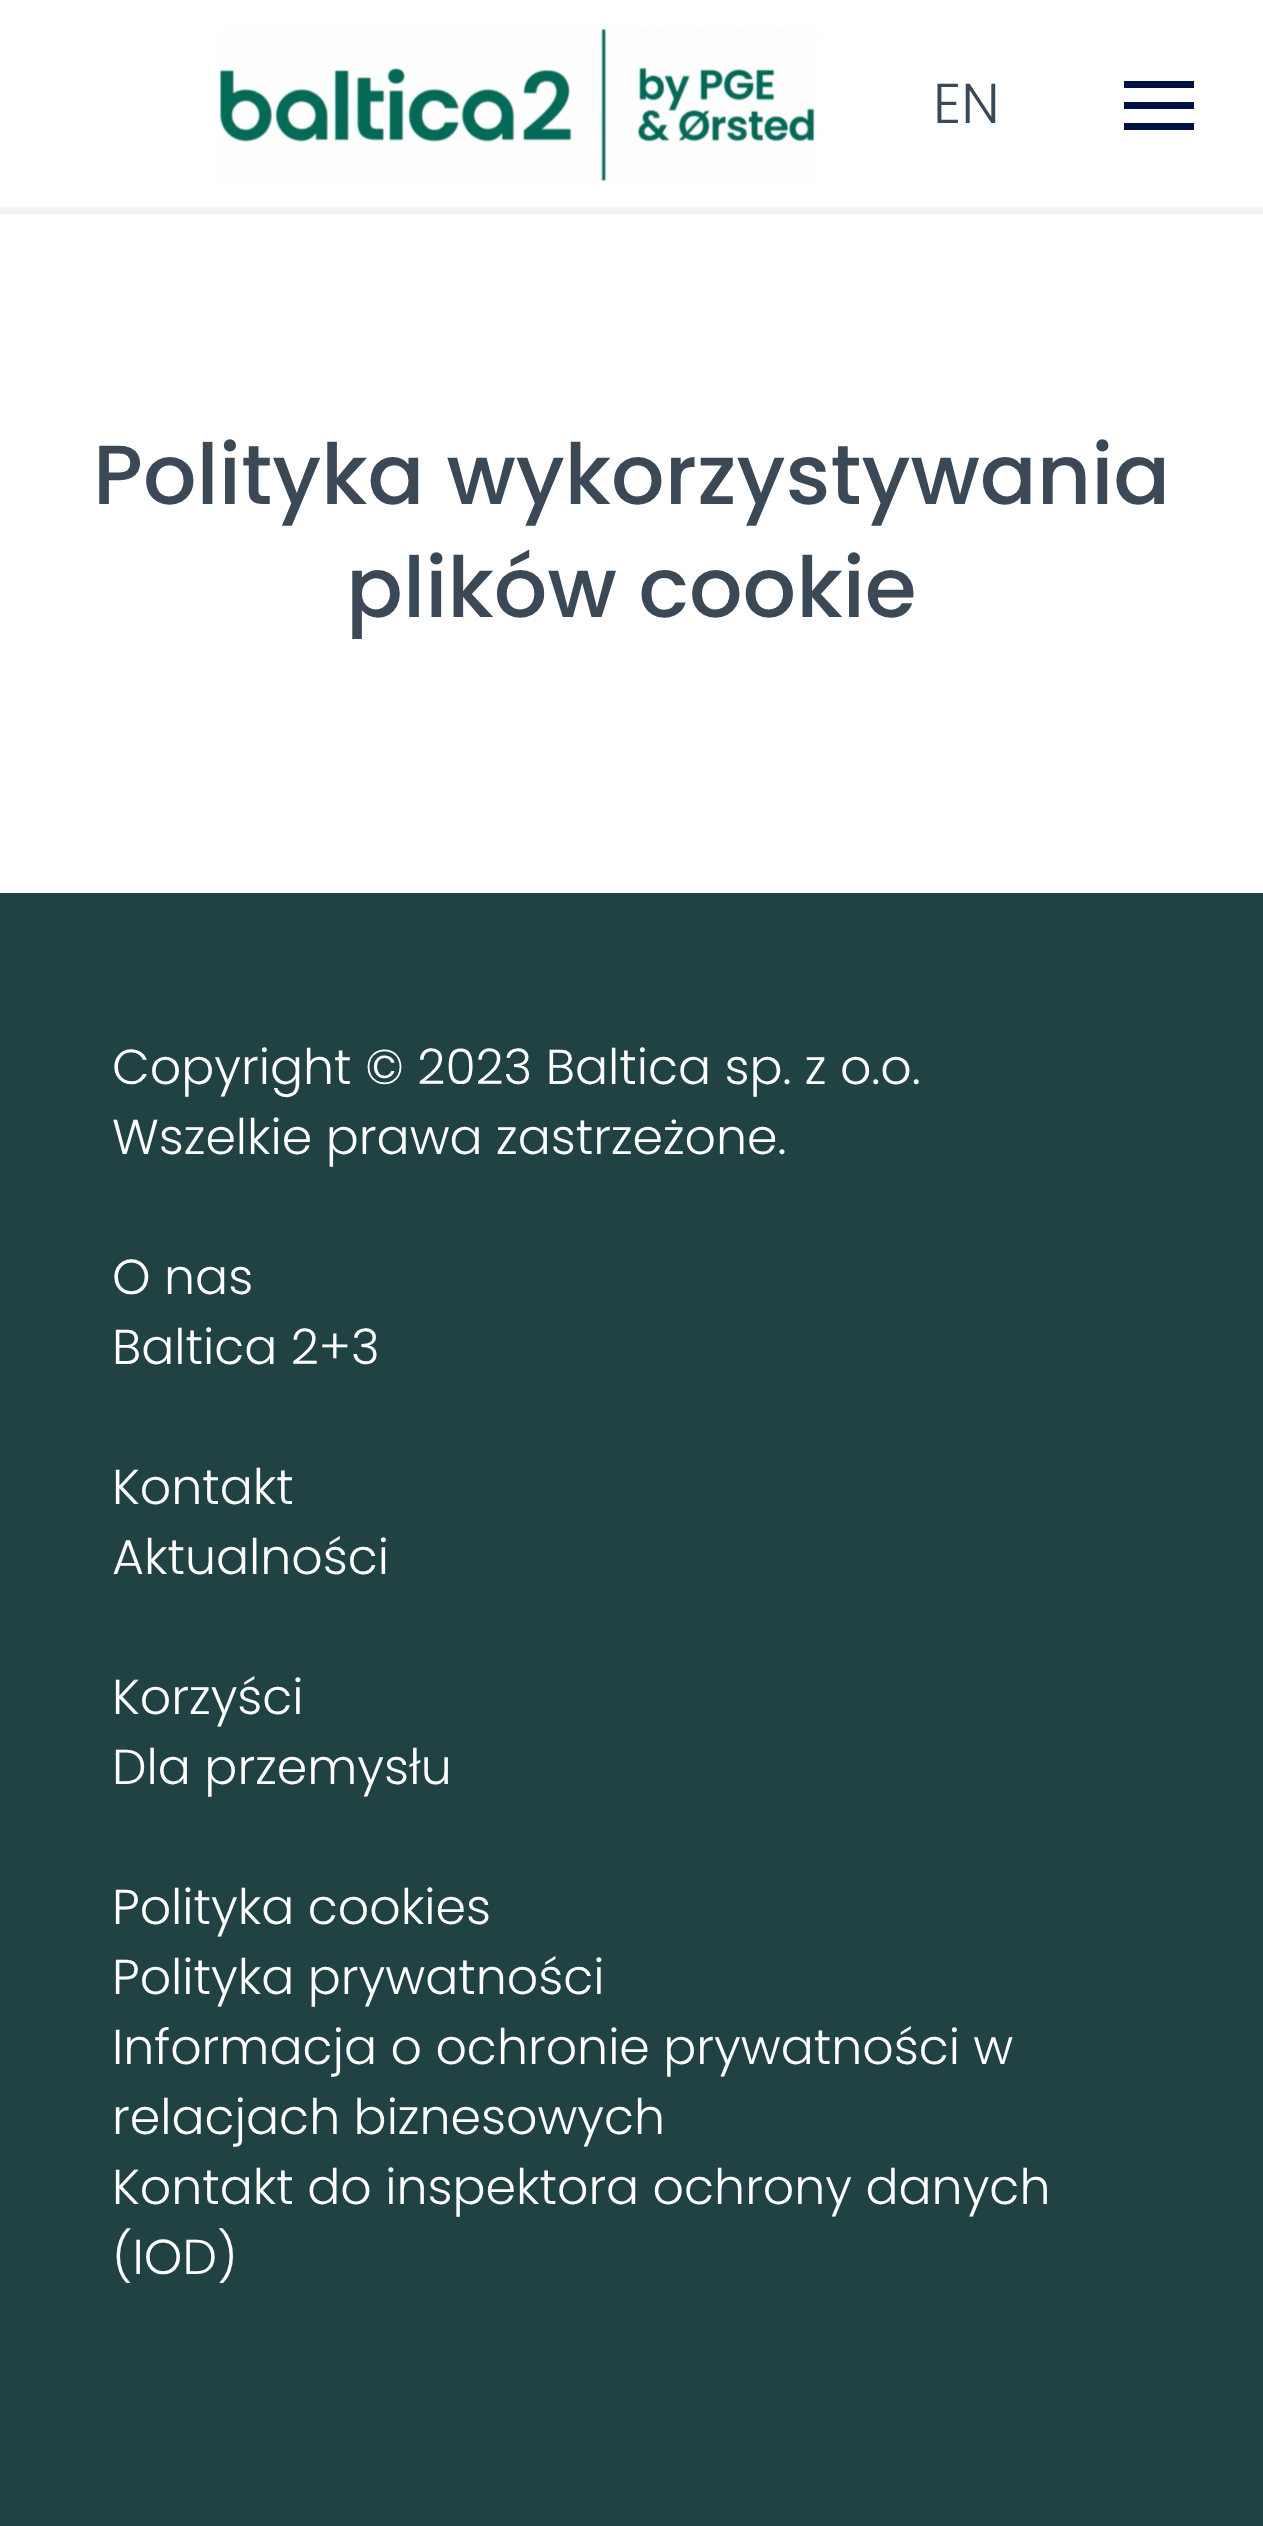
<svg xmlns="http://www.w3.org/2000/svg" width="1263" height="2526">
<style>
.a{font:300 56px Poppins;fill:#3b4956}
.b{font:500 84px Poppins;fill:#3b4956}
.c{font:300 49px Poppins;fill:#fff}
</style>
<rect width="100%" height="100%" fill="#fff"/>
<path fill="#f2f2f2" d="M0 211h1263v3H0z"/>
<path fill="#f3f3f3" d="M0 207h1263v4H0z"/>
<image href="1.png" x="219" y="28" width="600" height="154"/>
<path fill="#001142" d="M1124 81h70v7H1124z"/>
<path fill="#001142" d="M1124 102h70v7H1124z"/>
<path fill="#001142" d="M1124 123h70v7H1124z"/>
<path fill="#214242" d="M0 893h1263v1633H0z"/>
<text class="a" x="933" y="123">EN</text>
<text class="b" x="93" y="504">Polityka wykorzystywania</text>
<text class="b" x="346" y="617">plików cookie</text>
<text class="c" x="112" y="1084">Copyright © 2023 Baltica sp. z o.o.</text>
<text class="c" x="112" y="1154">Wszelkie prawa zastrzeżone.</text>
<text class="c" x="112" y="1294">O nas</text>
<text class="c" x="112" y="1364">Baltica 2+3</text>
<text class="c" x="112" y="1504">Kontakt</text>
<text class="c" x="112" y="1574">Aktualności</text>
<text class="c" x="112" y="1714">Korzyści</text>
<text class="c" x="112" y="1784">Dla przemysłu</text>
<text class="c" x="112" y="1924">Polityka cookies</text>
<text class="c" x="112" y="1994">Polityka prywatności</text>
<text class="c" x="112" y="2064">Informacja o ochronie prywatności w</text>
<text class="c" x="112" y="2134">relacjach biznesowych</text>
<text class="c" x="112" y="2204">Kontakt do inspektora ochrony danych</text>
<text class="c" x="112" y="2274">(IOD)</text>
</svg>
